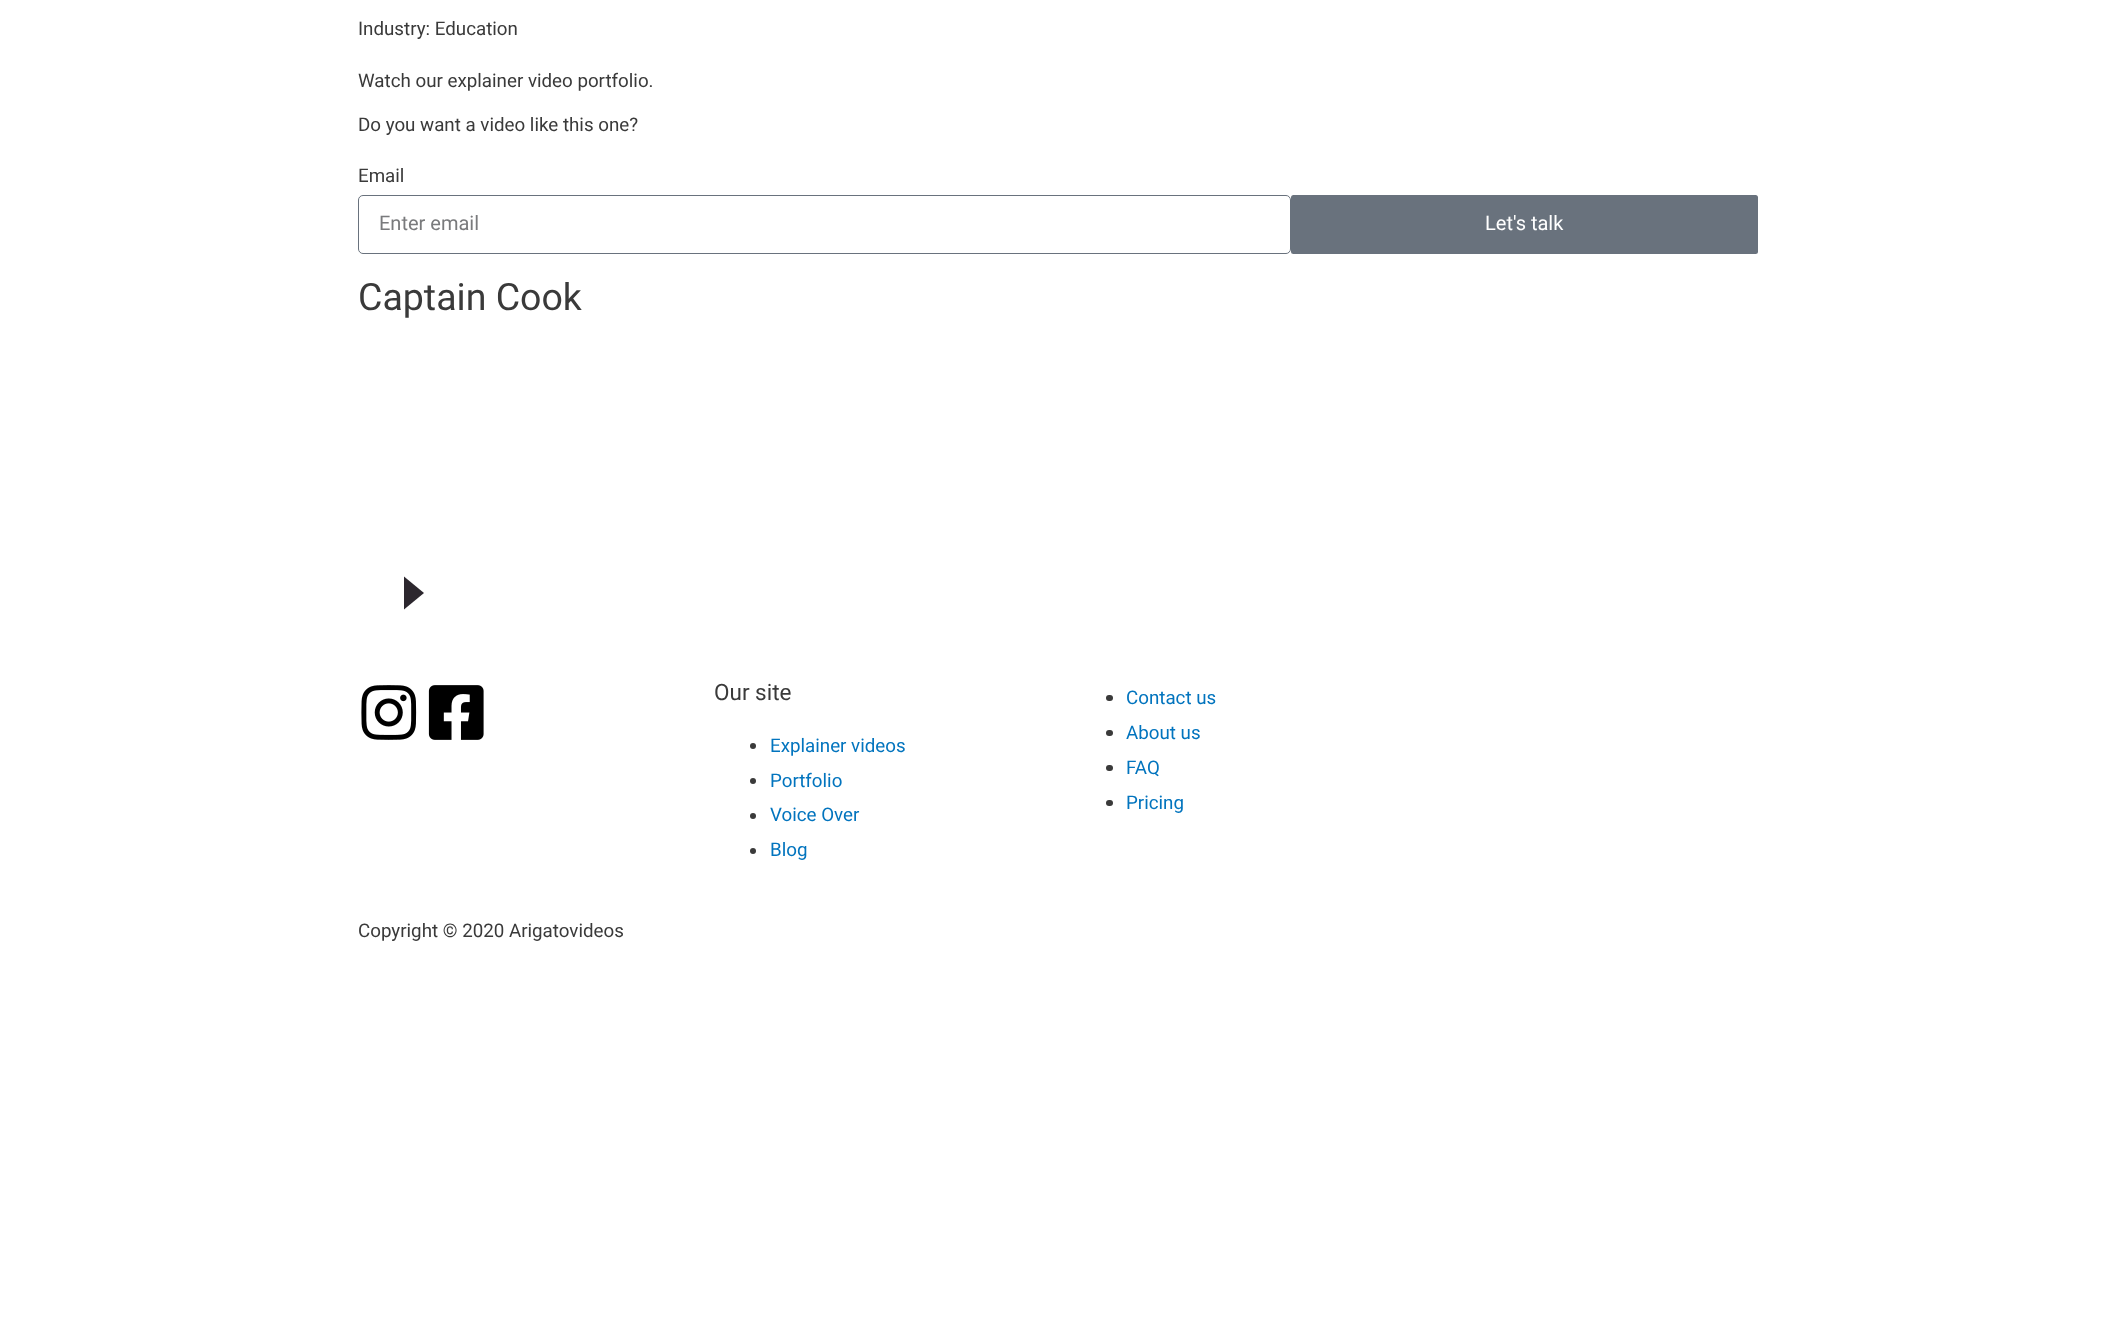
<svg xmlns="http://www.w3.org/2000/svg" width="2114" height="1338">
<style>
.a{font:18.75px Roboto;fill:#3a3a3a}
.b{font:20px Roboto;fill:#797a7c}
.c{font:20px Roboto;fill:#fff}
.d{font:37.5px Roboto;fill:#3a3a3a}
.e{font:22.5px Roboto;fill:#3a3a3a}
.f{font:18.75px Roboto;fill:#0274be}
</style>
<rect width="100%" height="100%" fill="#fff"/>
<rect fill="none" stroke="#69727d" x="358.5" y="195.5" width="932" height="58" rx="4.5"/>
<rect fill="#69727d" x="1291" y="195" width="467" height="59" rx="2.5"/>
<path fill="#2c272e" d="M424 593l-20 16.5v-33z"/>
<image href="1.png" x="361" y="685" width="56" height="55"/>
<image href="2.png" x="428" y="685" width="56" height="55"/>
<circle fill="#3a3a3a" cx="753" cy="746" r="3"/>
<circle fill="#3a3a3a" cx="753" cy="781" r="3"/>
<circle fill="#3a3a3a" cx="753" cy="816" r="3"/>
<circle fill="#3a3a3a" cx="753" cy="851" r="3"/>
<rect fill="#3a3a3a" x="1106" y="695" width="7" height="6" rx="3"/>
<rect fill="#3a3a3a" x="1106" y="730" width="7" height="6" rx="3"/>
<rect fill="#3a3a3a" x="1106" y="765" width="7" height="6" rx="3"/>
<rect fill="#3a3a3a" x="1106" y="800" width="7" height="6" rx="3"/>
<text class="a" x="358" y="35">Industry: Education</text>
<text class="a" x="358" y="87">Watch our explainer video portfolio.</text>
<text class="a" x="358" y="131">Do you want a video like this one?</text>
<text class="a" x="358" y="182">Email</text>
<text class="b" x="379" y="230">Enter email</text>
<text class="c" x="1485" y="230">Let's talk</text>
<text class="d" x="358" y="310">Captain Cook</text>
<text class="e" x="714" y="700">Our site</text>
<text class="f" x="770" y="752">Explainer videos</text>
<text class="f" x="770" y="787">Portfolio</text>
<text class="f" x="770" y="821">Voice Over</text>
<text class="f" x="770" y="856">Blog</text>
<text class="f" x="1126" y="704">Contact us</text>
<text class="f" x="1126" y="739">About us</text>
<text class="f" x="1126" y="774">FAQ</text>
<text class="f" x="1126" y="809">Pricing</text>
<text class="a" x="358" y="937">Copyright © 2020 Arigatovideos</text>
</svg>
